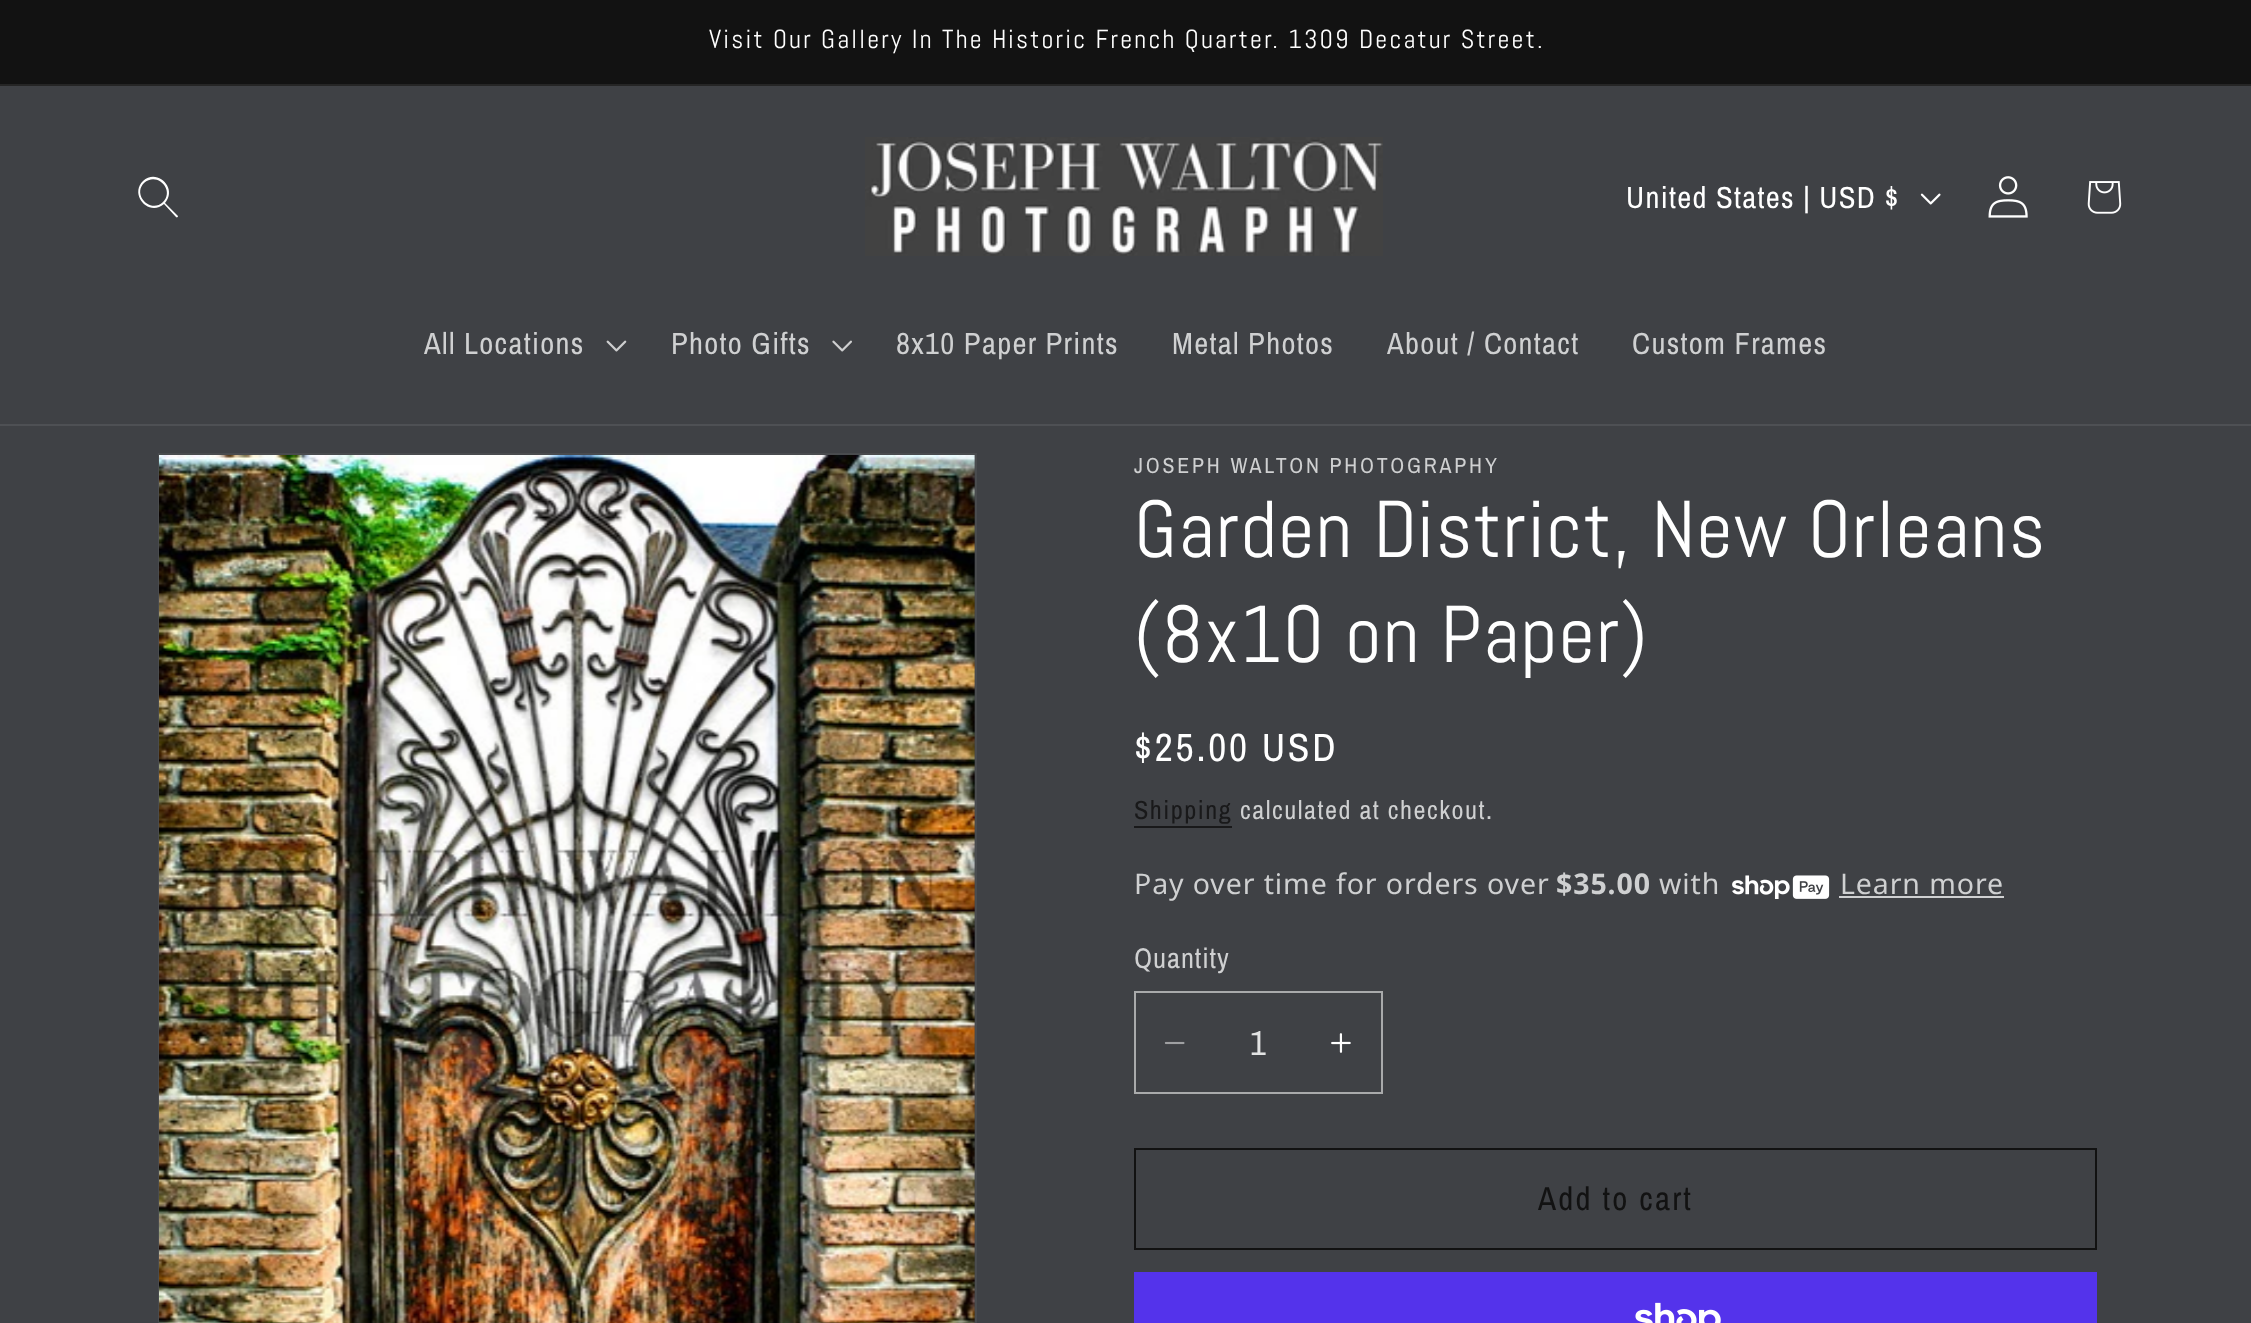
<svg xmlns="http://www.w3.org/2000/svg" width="2251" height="1323">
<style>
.a{font:26.15px Abel;letter-spacing:2.2px;fill:#fff}
.b{font:30.6px Archivo Narrow;letter-spacing:1.3px;fill:#fff}
.c{font:30.6px Archivo Narrow;letter-spacing:1.3px;fill:#cfd0d1}
.d{font:21.9px Archivo Narrow;letter-spacing:2.8px;fill:#cfd0d1}
.e{font:80.5px Abel;letter-spacing:1.2px;fill:#fff}
.f{font:39.5px Archivo Narrow;letter-spacing:2.8px;fill:#fff}
.g{font:26.25px Archivo Narrow;letter-spacing:1.5px;fill:#19191a}
.h{font:26.25px Archivo Narrow;letter-spacing:1.5px;fill:#cfd0d1}
.i{font:28.5px Noto Sans;letter-spacing:0.9px;fill:#cfd0d1}
.j{font:bold 28.5px Noto Sans;letter-spacing:0.9px;fill:#cfd0d1}
.k{font:28.5px Archivo Narrow;letter-spacing:0.9px;fill:#cfd0d1}
.l{font:35px Archivo Narrow;fill:#e2e3e3}
.m{font:33px Archivo Narrow;letter-spacing:2.2px;fill:#121212}
</style>
<rect width="100%" height="100%" fill="#3f4145"/>
<path fill="#121212" d="M0 0h2251v84H0z"/>
<path fill="#252525" d="M0 84h2251v2H0z"/>
<path fill="#4e5054" d="M0 424h2251v2H0z"/>
<path fill="#fff" fill-rule="evenodd" d="M163 202c-12 12-31-7-19-19c13-12 31 7 19 19m1 2c-15 13-35-9-21-23c14-13 35 7 22 22l13 13c0 1-1 2-2 1z"/>
<image href="1.png" x="865" y="137" width="518" height="119"/>
<image href="2.png" x="1920" y="193" width="21" height="12"/>
<image href="3.png" x="1988" y="176" width="40" height="42"/>
<image href="4.png" x="2087" y="181" width="35" height="33"/>
<image href="5.png" x="606" y="340" width="21" height="12"/>
<image href="6.png" x="832" y="340" width="20" height="12"/>
<path fill="none" stroke="#494b4e" stroke-width="2" d="M159 454h817v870H159z"/>
<image href="7.png" x="159" y="455" width="816" height="868"/>
<path fill="#19191a" d="M1134 826h98v2H1134z"/>
<image href="8.png" x="1732" y="875" width="98" height="24"/>
<path fill="#cfd0d1" d="M1839 896h165v2H1839z"/>
<image href="9.png" x="1164" y="1041" width="21" height="4"/>
<image href="10.png" x="1331" y="1033" width="20" height="20"/>
<path fill="none" stroke="#a9aaab" stroke-width="2" d="M1135 992h247v101H1135z"/>
<path fill="none" stroke="#121212" stroke-width="2" d="M1135 1149h961v100H1135z"/>
<path fill="#5433eb" d="M1134 1272h963v51H1134z"/>
<image href="11.png" x="1635" y="1302" width="86" height="21"/>
<text class="a" x="709" y="48">Visit Our Gallery In The Historic French Quarter. 1309 Decatur Street.</text>
<text class="b" x="1626" y="208">United States | USD $</text>
<text class="c" x="424" y="354">All Locations</text>
<text class="c" x="671" y="354">Photo Gifts</text>
<text class="c" x="896" y="354">8x10 Paper Prints</text>
<text class="c" x="1172" y="354">Metal Photos</text>
<text class="c" x="1387" y="354">About / Contact</text>
<text class="c" x="1632" y="354">Custom Frames</text>
<text class="d" x="1134" y="473">JOSEPH WALTON PHOTOGRAPHY</text>
<text class="e" x="1134" y="557">Garden District, New Orleans</text>
<text class="e" x="1134" y="662">(8x10 on Paper)</text>
<text class="f" x="1134" y="761">$25.00 USD</text>
<text class="g" x="1134" y="819">Shipping</text>
<text class="h" x="1240" y="819">calculated at checkout.</text>
<text class="i" x="1134" y="894">Pay over time for orders over</text>
<text class="j" x="1556" y="894">$35.00</text>
<text class="i" x="1659" y="894">with</text>
<text class="i" x="1840" y="894">Learn more</text>
<text class="k" x="1134" y="968">Quantity</text>
<text class="l" x="1250" y="1055">1</text>
<text class="m" x="1538" y="1210">Add to cart</text>
</svg>
